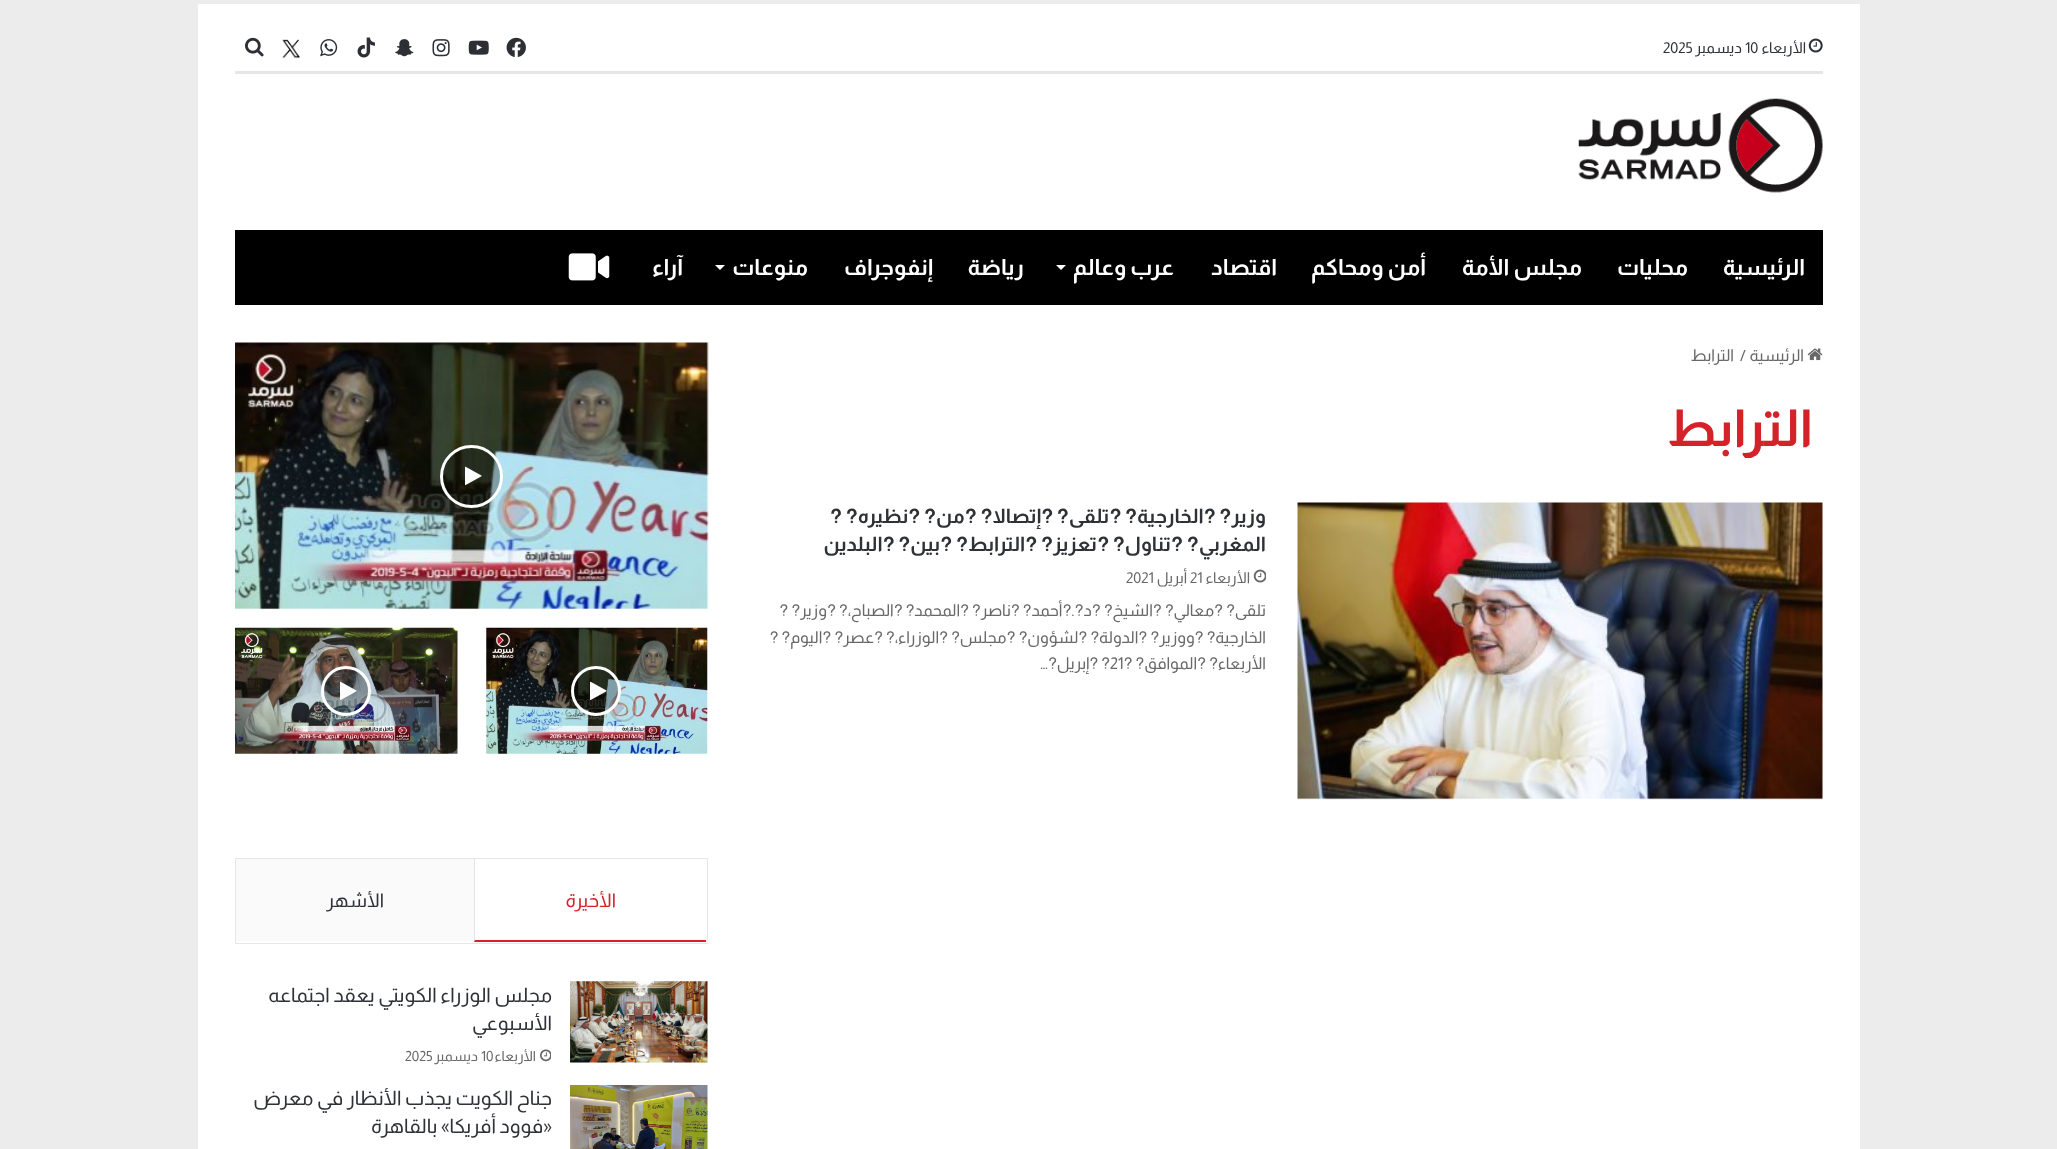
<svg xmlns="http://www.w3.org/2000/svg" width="2057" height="1149">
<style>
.a{font:15px Almarai;direction:rtl;fill:#2e3136}
.b{font:15px Almarai;fill:#2e3136}
.c{font:bold 22.5px Almarai;direction:rtl;fill:#fff}
.d{font:16.25px Almarai;direction:rtl;fill:#686868}
.e{font:16.25px Almarai;fill:#686868}
.f{font:bold 51px Almarai;direction:rtl;fill:#d52229}
.g{font:bold 20px Almarai;direction:rtl;fill:#2e3136}
.h{font:15px Almarai;direction:rtl;fill:#686868}
.i{font:15px Almarai;fill:#686868}
.j{font:19px Almarai;direction:rtl;fill:#d52229}
.k{font:19px Almarai;direction:rtl;fill:#2e3136}
.l{font:20px Almarai;direction:rtl;fill:#2e3136}
.m{font:14px Almarai;direction:rtl;fill:#686868}
.n{font:14px Almarai;fill:#686868}
</style>
<rect width="100%" height="100%" fill="#ececec"/>
<path fill="#fff" d="M198 4h1662v1145H198z"/>
<path fill="#e6e6e6" d="M235 71h1588v3H235z"/>
<image href="1.png" x="1808" y="38" width="15" height="15"/>
<image href="2.png" x="506" y="37" width="20" height="20"/>
<image href="3.png" x="468" y="40" width="21" height="15"/>
<image href="4.png" x="432" y="39" width="18" height="18"/>
<image href="5.png" x="395" y="39" width="19" height="18"/>
<image href="6.png" x="357" y="37" width="18" height="21"/>
<image href="7.png" x="320" y="39" width="18" height="18"/>
<image href="8.png" x="282" y="39" width="18" height="20"/>
<image href="9.png" x="245" y="37" width="19" height="20"/>
<image href="10.png" x="1578" y="98" width="245" height="95"/>
<path fill="#000" d="M235 230h1588v75H235z"/>
<path fill="#fff" d="M1056 265h10l-5 5z"/>
<path fill="#fff" d="M715 265h10l-5 5z"/>
<image href="11.png" x="568" y="253" width="42" height="28"/>
<image href="12.png" x="1807" y="348" width="16" height="13"/>
<image href="13.png" x="1297" y="502" width="526" height="298"/>
<image href="14.png" x="1253" y="569" width="13" height="14"/>
<image href="15.png" x="235" y="342" width="474" height="268"/>
<circle fill="#0303034d" stroke="#fff" stroke-width="3" cx="471.5" cy="476.5" r="30"/>
<image href="16.png" x="465" y="466" width="17" height="19"/>
<image href="17.png" x="486" y="627" width="222" height="127"/>
<circle fill="#0303034d" stroke="#fff" stroke-width="3" cx="596" cy="691" r="23.5"/>
<image href="18.png" x="590" y="681" width="17" height="19"/>
<image href="19.png" x="235" y="627" width="223" height="127"/>
<circle fill="#0303034d" stroke="#fff" stroke-width="3" cx="346" cy="691" r="23.5"/>
<image href="20.png" x="340" y="681" width="17" height="19"/>
<path fill="none" stroke="#e6e6e6" d="M235.5 858.5h472v85H235.5z"/>
<path fill="#d52229" d="M706 942h-232l1-2h231z"/>
<path fill="#0303031a" d="M474 942v-83h1v81z"/>
<path fill="#fafafa" d="M236 859h238v82H236z"/>
<image href="21.png" x="570" y="981" width="138" height="82"/>
<image href="22.png" x="540" y="1049" width="11" height="13"/>
<image href="23.png" x="570" y="1085" width="138" height="64"/>
<text class="a" x="1806" y="53">الأربعاء</text>
<text class="b" x="1745" y="53">10</text>
<text class="a" x="1742" y="53">ديسمبر</text>
<text class="b" x="1663" y="53">2025</text>
<text class="c" x="1805" y="275">الرئيسية</text>
<text class="c" x="1688" y="275">محليات</text>
<text class="c" x="1582" y="275">مجلس الأمة</text>
<text class="c" x="1426" y="275">أمن ومحاكم</text>
<text class="c" x="1277" y="275">اقتصاد</text>
<text class="c" x="1174" y="275">عرب وعالم</text>
<text class="c" x="1024" y="275">رياضة</text>
<text class="c" x="933" y="275">إنفوجراف</text>
<text class="c" x="808" y="275">منوعات</text>
<text class="c" x="683" y="275">آراء</text>
<text class="d" x="1804" y="361">الرئيسية</text>
<text class="e" x="1740" y="361">/</text>
<text class="d" x="1734" y="361">الترابط</text>
<text class="f" x="1813" y="446">الترابط</text>
<text class="g" x="1266" y="523">وزير? ?الخارجية? ?تلقى? ?إتصالا? ?من? ?نظيره? ?</text>
<text class="g" x="1266" y="551">المغربي? ?تناول? ?تعزيز? ?الترابط? ?بين? ?البلدين</text>
<text class="h" x="1250" y="583">الأربعاء</text>
<text class="i" x="1190" y="583">21</text>
<text class="h" x="1187" y="583">أبريل</text>
<text class="i" x="1126" y="583">2021</text>
<text class="d" x="1266" y="616">تلقى? ?معالي? ?الشيخ? ?د?.?أحمد? ?ناصر? ?المحمد? ?الصباح،? ?وزير? ?</text>
<text class="d" x="1266" y="643">الخارجية? ?ووزير? ?الدولة? ?لشؤون? ?مجلس? ?الوزراء،? ?عصر? ?اليوم? ?</text>
<text class="d" x="1266" y="669">الأربعاء? ?الموافق? ?</text>
<text class="e" x="1110" y="669">21</text>
<text class="d" x="1110" y="669">? ?إبريل?…</text>
<text class="j" x="616" y="907">الأخيرة</text>
<text class="k" x="384" y="907">الأشهر</text>
<text class="l" x="552" y="1002">مجلس الوزراء الكويتي يعقد اجتماعه</text>
<text class="l" x="552" y="1030">الأسبوعي</text>
<text class="m" x="536" y="1061">الأربعاء</text>
<text class="n" x="481" y="1061">10</text>
<text class="m" x="478" y="1061">ديسمبر</text>
<text class="n" x="405" y="1061">2025</text>
<text class="l" x="552" y="1105">جناح الكويت يجذب الأنظار في معرض</text>
<text class="l" x="552" y="1133">«فوود أفريكا» بالقاهرة</text>
</svg>
